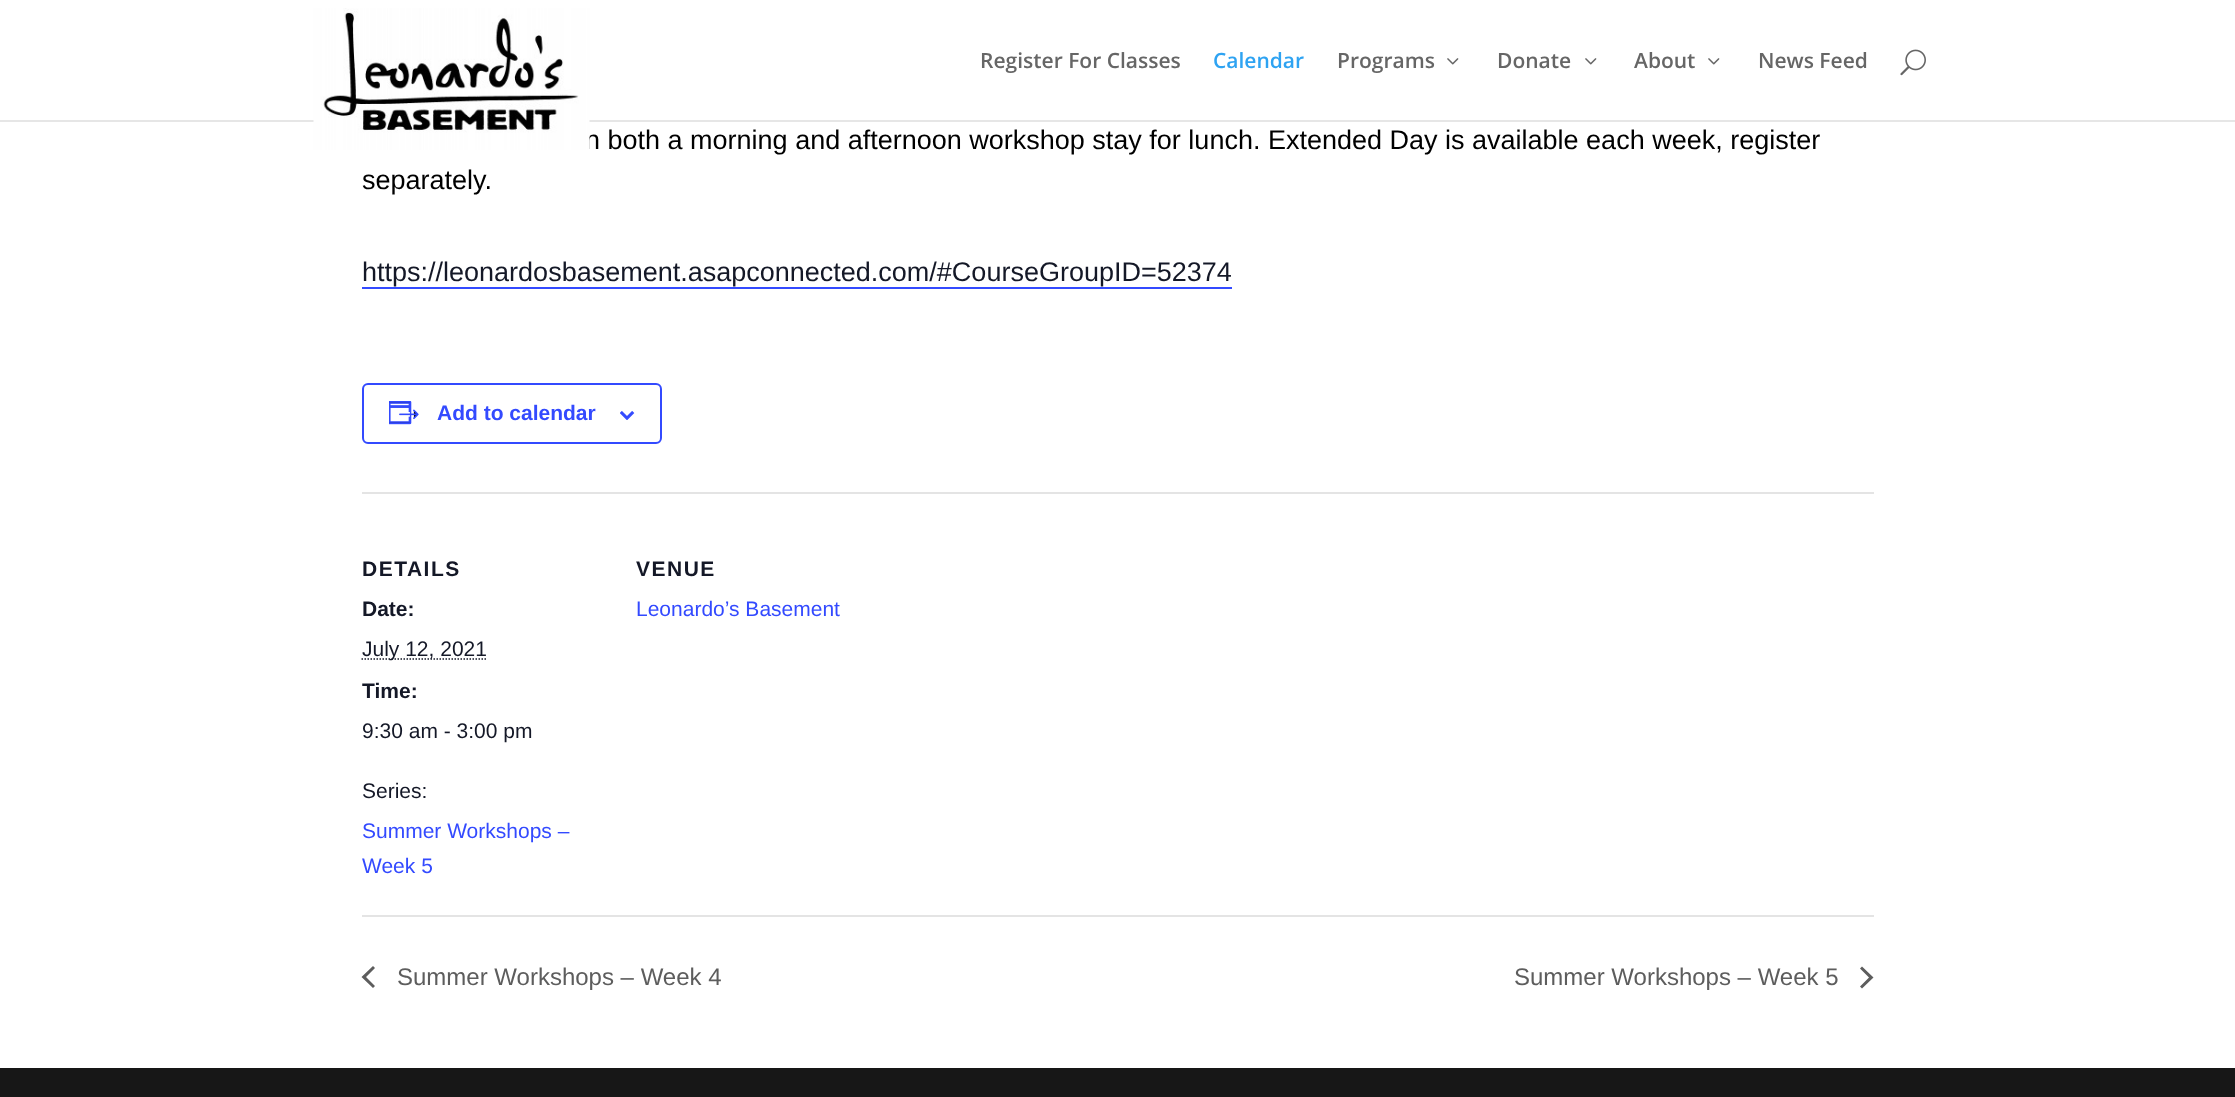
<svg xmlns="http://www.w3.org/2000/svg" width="2235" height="1097">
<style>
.a{font:600 21px Open Sans;fill:#666}
.b{font:600 21px Open Sans;fill:#2ea3f2}
.c{font:27px Liberation Sans;fill:#000}
.d{font:27px Liberation Sans;fill:#141827}
.e{font:bold 21px Liberation Sans;fill:#334aff}
.f{font:bold 21px Liberation Sans;letter-spacing:1.5px;fill:#141827}
.g{font:bold 21px Liberation Sans;fill:#141827}
.h{font:21px Liberation Sans;fill:#141827}
.i{font:21px Liberation Sans;fill:#334aff}
.j{font:24px Liberation Sans;fill:#5d5d5d}
</style>
<defs>
<clipPath id="clip1"><path d="M362 0h1512v915H362z"/></clipPath>
</defs>
<rect width="100%" height="100%" fill="#fff"/>
<path fill="#e6e6e6" d="M0 120h2235v2H0z"/>
<image href="2.png" x="1447" y="58" width="12" height="7"/>
<image href="2.png" x="1585" y="58" width="12" height="7"/>
<image href="2.png" x="1708" y="58" width="12" height="7"/>
<image href="3.png" x="1900" y="49" width="26" height="27"/>
<path fill="#334aff" d="M362 287h870v2H362z"/>
<rect fill="none" stroke="#334aff" stroke-width="2" x="363" y="384" width="298" height="59" rx="5"/>
<image href="4.png" x="389" y="401" width="30" height="24"/>
<image href="5.png" x="620" y="411" width="15" height="9"/>
<path fill="#e4e4e4" d="M362 492h1512v2H362z"/>
<path fill="none" stroke="#141827" stroke-width="1.5" stroke-dasharray="1.5 1.5" d="M361.5 659h125"/>
<path fill="#e4e4e4" d="M362 915h1512v2H362z"/>
<path fill="#5d5d5d" d="M375 986l-2 2l-11.5-11l11.5-11l2 2l-9 9z"/>
<path fill="#5d5d5d" d="M1860 968.5l2-2l11.5 11l-11.5 11l-2-2l9-9z"/>
<path fill="#171717" d="M0 1068h2235v29H0z"/>
<text class="a" x="980" y="68">Register For Classes</text>
<text class="b" x="1213" y="68">Calendar</text>
<text class="a" x="1337" y="68">Programs</text>
<text class="a" x="1497" y="68">Donate</text>
<text class="a" x="1634" y="68">About</text>
<text class="a" x="1758" y="68">News Feed</text>
<text class="c" x="585" y="149">n both a morning and afternoon workshop stay for lunch. Extended Day is available each week, register</text>
<image href="1.png" x="313" y="8" width="277" height="142"/>
<text class="c" x="362" y="189">separately.</text>
<text class="d" x="362" y="281">https://leonardosbasement.asapconnected.com/#CourseGroupID=52374</text>
<text class="e" x="437" y="420">Add to calendar</text>
<text class="f" x="362" y="576">DETAILS</text>
<text class="g" x="362" y="616">Date:</text>
<text class="h" x="362" y="656">July 12, 2021</text>
<g clip-path="url(#clip1)">
<text class="g" x="362" y="698">Time:</text>
</g>
<text class="h" x="362" y="738">9:30 am - 3:00 pm</text>
<text class="h" x="362" y="798">Series:</text>
<text class="i" x="362" y="838">Summer Workshops –</text>
<text class="i" x="362" y="873">Week 5</text>
<text class="f" x="636" y="576">VENUE</text>
<text class="i" x="636" y="616">Leonardo’s Basement</text>
<text class="j" x="397" y="985">Summer Workshops – Week 4</text>
<text class="j" x="1514" y="985">Summer Workshops – Week 5</text>
</svg>
